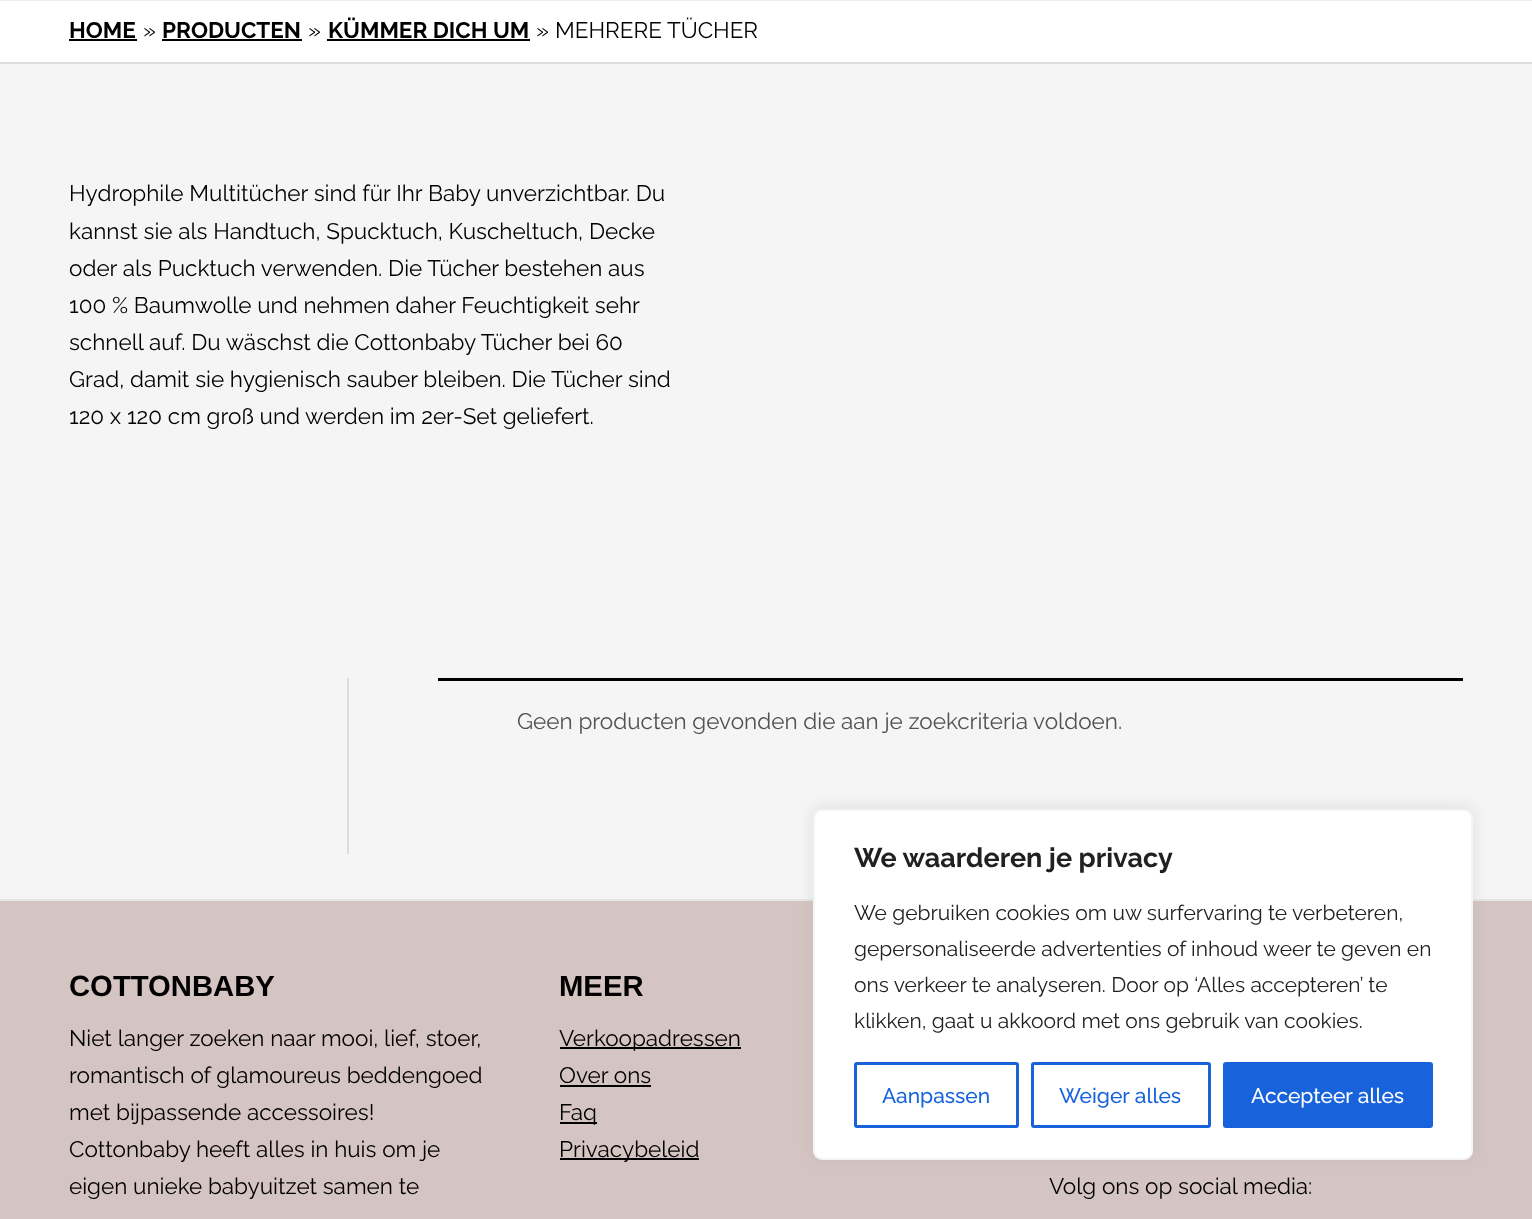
<svg xmlns="http://www.w3.org/2000/svg" width="1532" height="1219">
<style>
.a{font:bold 22.5px Raleway;fill:#000}
.b{font:22.5px Raleway;fill:#000}
.c{font:22.5px Raleway;fill:#515151}
.d{font:bold 29.25px Liberation Sans;fill:#000}
.e{font:bold 27px Raleway;fill:#212121}
.f{font:21px Raleway;fill:#212121}
.g{font:500 21px Raleway;fill:#1863dc}
.h{font:500 21px Raleway;fill:#fff}
</style>
<rect width="100%" height="100%" fill="#f5f5f5"/>
<path fill="#fff" d="M0 1h1532v61H0z"/>
<path fill="#ececec" d="M0 0h1532v1H0z"/>
<path fill="#ddd" d="M0 62h1532v2H0z"/>
<path fill="#000" d="M69 39h68v2H69z"/>
<path fill="#000" d="M162 39h140v2H162z"/>
<path fill="#000" d="M327 39h203v2H327z"/>
<path fill="#ddd" d="M347 678h2v176H347z"/>
<path fill="#000" d="M438 678h1025v3H438z"/>
<path fill="#d4c4c2" d="M0 901h1532v318H0z"/>
<path fill="#e6e6e6" d="M0 899h1532v2H0z"/>
<path fill="#000" d="M560 1047h181v2H560z"/>
<path fill="#000" d="M560 1085h91v2H560z"/>
<path fill="#000" d="M560 1122h37v2H560z"/>
<path fill="#000" d="M560 1158h139v2H560z"/>
<rect fill="#acabab4d" filter="blur(7.5px)" x="813" y="807" width="660" height="351" rx="9"/>
<rect fill="#fff" stroke="#f4f4f4" stroke-width="2" x="814" y="810" width="658" height="349" rx="8"/>
<rect fill="none" stroke="#1863dc" stroke-width="3" x="855.5" y="1063.5" width="162" height="63" rx="1.5"/>
<rect fill="none" stroke="#1863dc" stroke-width="3" x="1032.5" y="1063.5" width="177" height="63" rx="1.5"/>
<rect fill="#1863dc" stroke="#1863dc" stroke-width="3" x="1224.5" y="1063.5" width="207" height="63" rx="1.5"/>
<text class="a" x="69" y="38">HOME</text>
<text class="b" x="143" y="38">»</text>
<text class="a" x="162" y="38">PRODUCTEN</text>
<text class="b" x="308" y="38">»</text>
<text class="a" x="328" y="38">KÜMMER DICH UM</text>
<text class="b" x="536" y="38">»</text>
<text class="b" x="555" y="38">MEHRERE TÜCHER</text>
<text class="b" x="69" y="201">Hydrophile Multitücher sind für Ihr Baby unverzichtbar. Du</text>
<text class="b" x="69" y="239">kannst sie als Handtuch, Spucktuch, Kuscheltuch, Decke</text>
<text class="b" x="69" y="276">oder als Pucktuch verwenden. Die Tücher bestehen aus</text>
<text class="b" x="69" y="313">100 % Baumwolle und nehmen daher Feuchtigkeit sehr</text>
<text class="b" x="69" y="350">schnell auf. Du wäschst die Cottonbaby Tücher bei 60</text>
<text class="b" x="69" y="387">Grad, damit sie hygienisch sauber bleiben. Die Tücher sind</text>
<text class="b" x="69" y="424">120 x 120 cm groß und werden im 2er-Set geliefert.</text>
<text class="c" x="517" y="729">Geen producten gevonden die aan je zoekcriteria voldoen.</text>
<text class="d" x="69" y="996">COTTONBABY</text>
<text class="b" x="69" y="1046">Niet langer zoeken naar mooi, lief, stoer,</text>
<text class="b" x="69" y="1083">romantisch of glamoureus beddengoed</text>
<text class="b" x="69" y="1120">met bijpassende accessoires!</text>
<text class="b" x="69" y="1157">Cottonbaby heeft alles in huis om je</text>
<text class="b" x="69" y="1194">eigen unieke babyuitzet samen te</text>
<text class="d" x="559" y="996">MEER</text>
<text class="b" x="559" y="1046">Verkoopadressen</text>
<text class="b" x="559" y="1083">Over ons</text>
<text class="b" x="559" y="1120">Faq</text>
<text class="b" x="559" y="1157">Privacybeleid</text>
<text class="b" x="1049" y="1194">Volg ons op social media:</text>
<text class="e" x="854" y="867">We waarderen je privacy</text>
<text class="f" x="854" y="920">We gebruiken cookies om uw surfervaring te verbeteren,</text>
<text class="f" x="854" y="956">gepersonaliseerde advertenties of inhoud weer te geven en</text>
<text class="f" x="854" y="992">ons verkeer te analyseren. Door op ‘Alles accepteren’ te</text>
<text class="f" x="854" y="1028">klikken, gaat u akkoord met ons gebruik van cookies.</text>
<text class="g" x="882" y="1103">Aanpassen</text>
<text class="g" x="1059" y="1103">Weiger alles</text>
<text class="h" x="1251" y="1103">Accepteer alles</text>
</svg>
